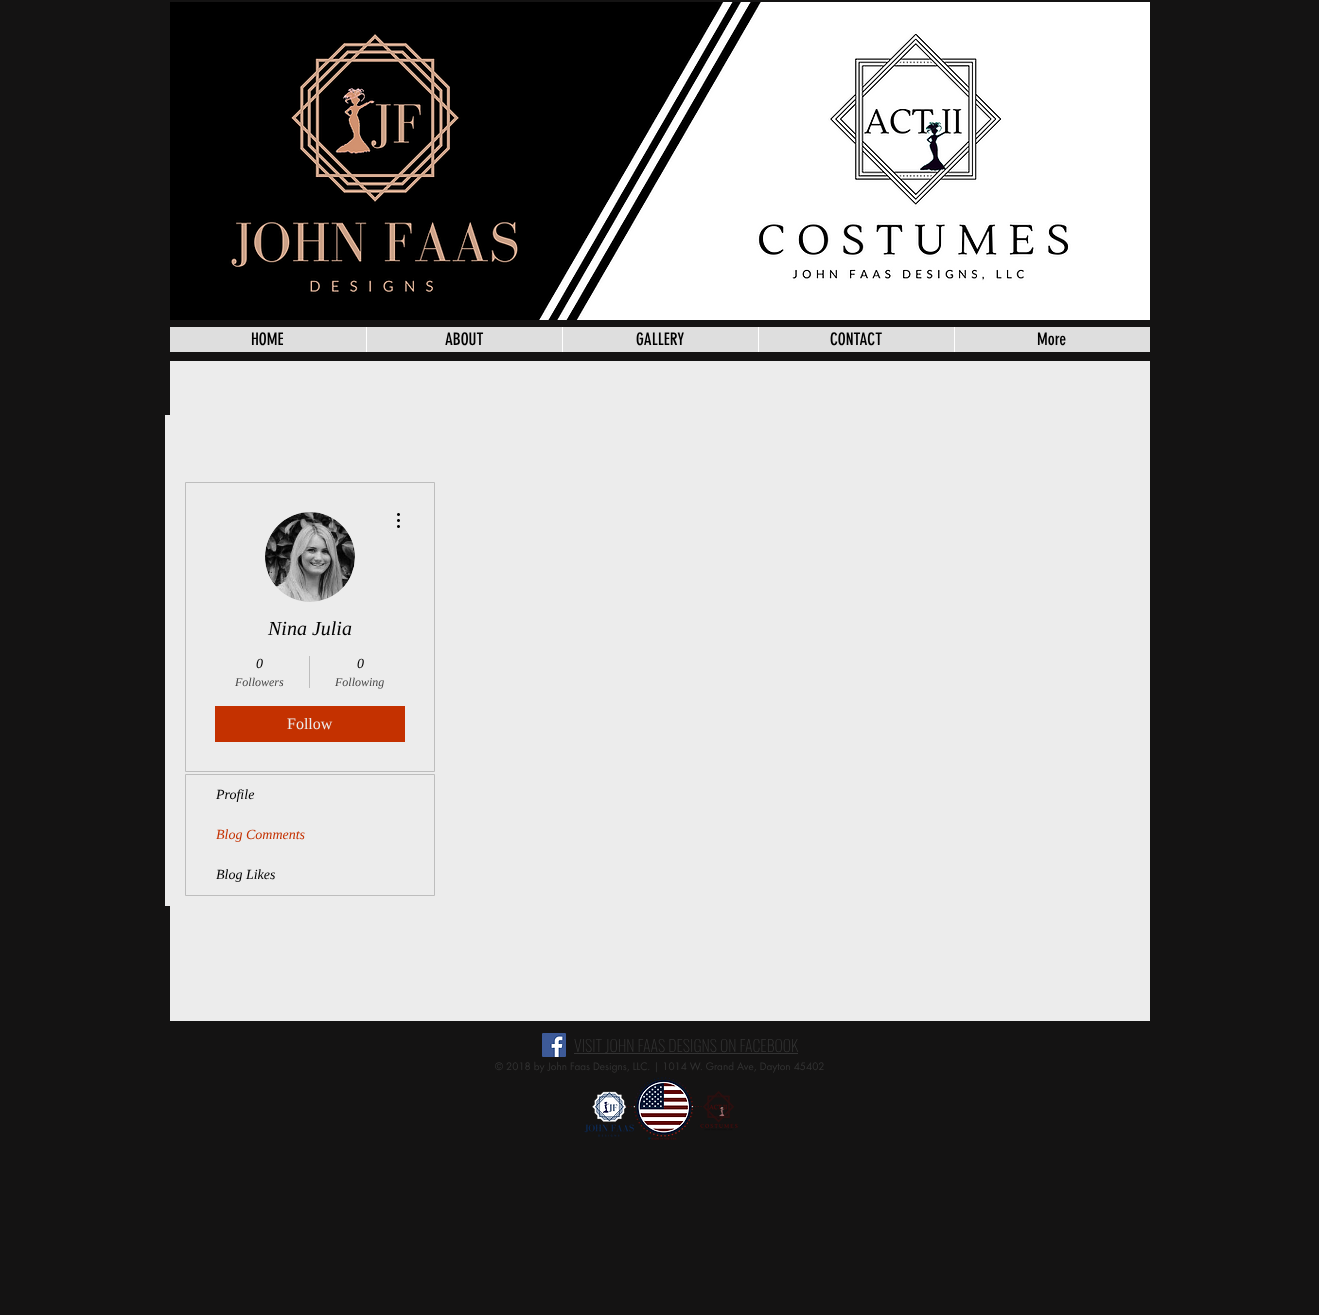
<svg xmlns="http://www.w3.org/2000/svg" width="1319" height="1315">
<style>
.a{font:17px 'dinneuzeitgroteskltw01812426';fill:#000}
.b{font:italic 20px Liberation Serif;fill:#000}
.c{font:italic 14px Liberation Serif;fill:#000}
.d{font:italic 12px Liberation Serif;fill:#474747}
.e{font:16px Liberation Serif;fill:#ececec}
.f{font:italic 14px Liberation Serif;fill:#c43100}
.g{font:200 16px Oswald;fill:#333}
.h{font:10px futura;fill:#333}
</style>
<rect width="100%" height="100%" fill="#141313"/>
<image href="1.png" x="170" y="2" width="980" height="318"/>
<path fill="#dedede" d="M170 327h980v25H170z"/>
<path fill="#fff" d="M366 327h1v25H366z"/>
<path fill="#fff" d="M562 327h1v25H562z"/>
<path fill="#fff" d="M758 327h1v25H758z"/>
<path fill="#fff" d="M954 327h1v25H954z"/>
<path fill="#ececec" d="M170 361h980v660H170z"/>
<path fill="#ececec" d="M165 415h5v491H165z"/>
<path fill="none" stroke="#bdbdbd" d="M185.5 482.5h249v289H185.5z"/>
<circle fill="#d8d8d8" cx="310" cy="557" r="45"/>
<image href="2.png" x="265" y="512" width="90" height="90"/>
<image href="3.png" x="397" y="513" width="3" height="15"/>
<path fill="#bdbdbd" d="M309 656h1v32H309z"/>
<path fill="#c43100" d="M215 706h190v36H215z"/>
<path fill="none" stroke="#bdbdbd" d="M185.5 774.5h249v121H185.5z"/>
<image href="4.png" x="542" y="1033" width="24" height="24"/>
<path fill="#333" d="M574 1053h224v1H574z"/>
<image href="5.png" x="584" y="1077" width="154" height="63"/>
<text class="a" x="251" y="345">HOME</text>
<text class="a" x="445" y="345">ABOUT</text>
<text class="a" x="636" y="345">GALLERY</text>
<text class="a" x="830" y="345">CONTACT</text>
<text class="a" x="1037" y="345">More</text>
<text class="b" x="268" y="635">Nina Julia</text>
<text class="c" x="256" y="668">0</text>
<text class="d" x="235" y="686">Followers</text>
<text class="c" x="357" y="668">0</text>
<text class="d" x="335" y="686">Following</text>
<text class="e" x="287" y="729">Follow</text>
<text class="c" x="216" y="799">Profile</text>
<text class="f" x="216" y="839">Blog Comments</text>
<text class="c" x="216" y="879">Blog Likes</text>
<text class="g" x="574" y="1052">VISIT JOHN FAAS DESIGNS ON FACEBOOK</text>
<text class="h" x="495" y="1070">© 2018 by John Faas Designs, LLC. | 1014 W. Grand Ave, Dayton 45402</text>
</svg>
